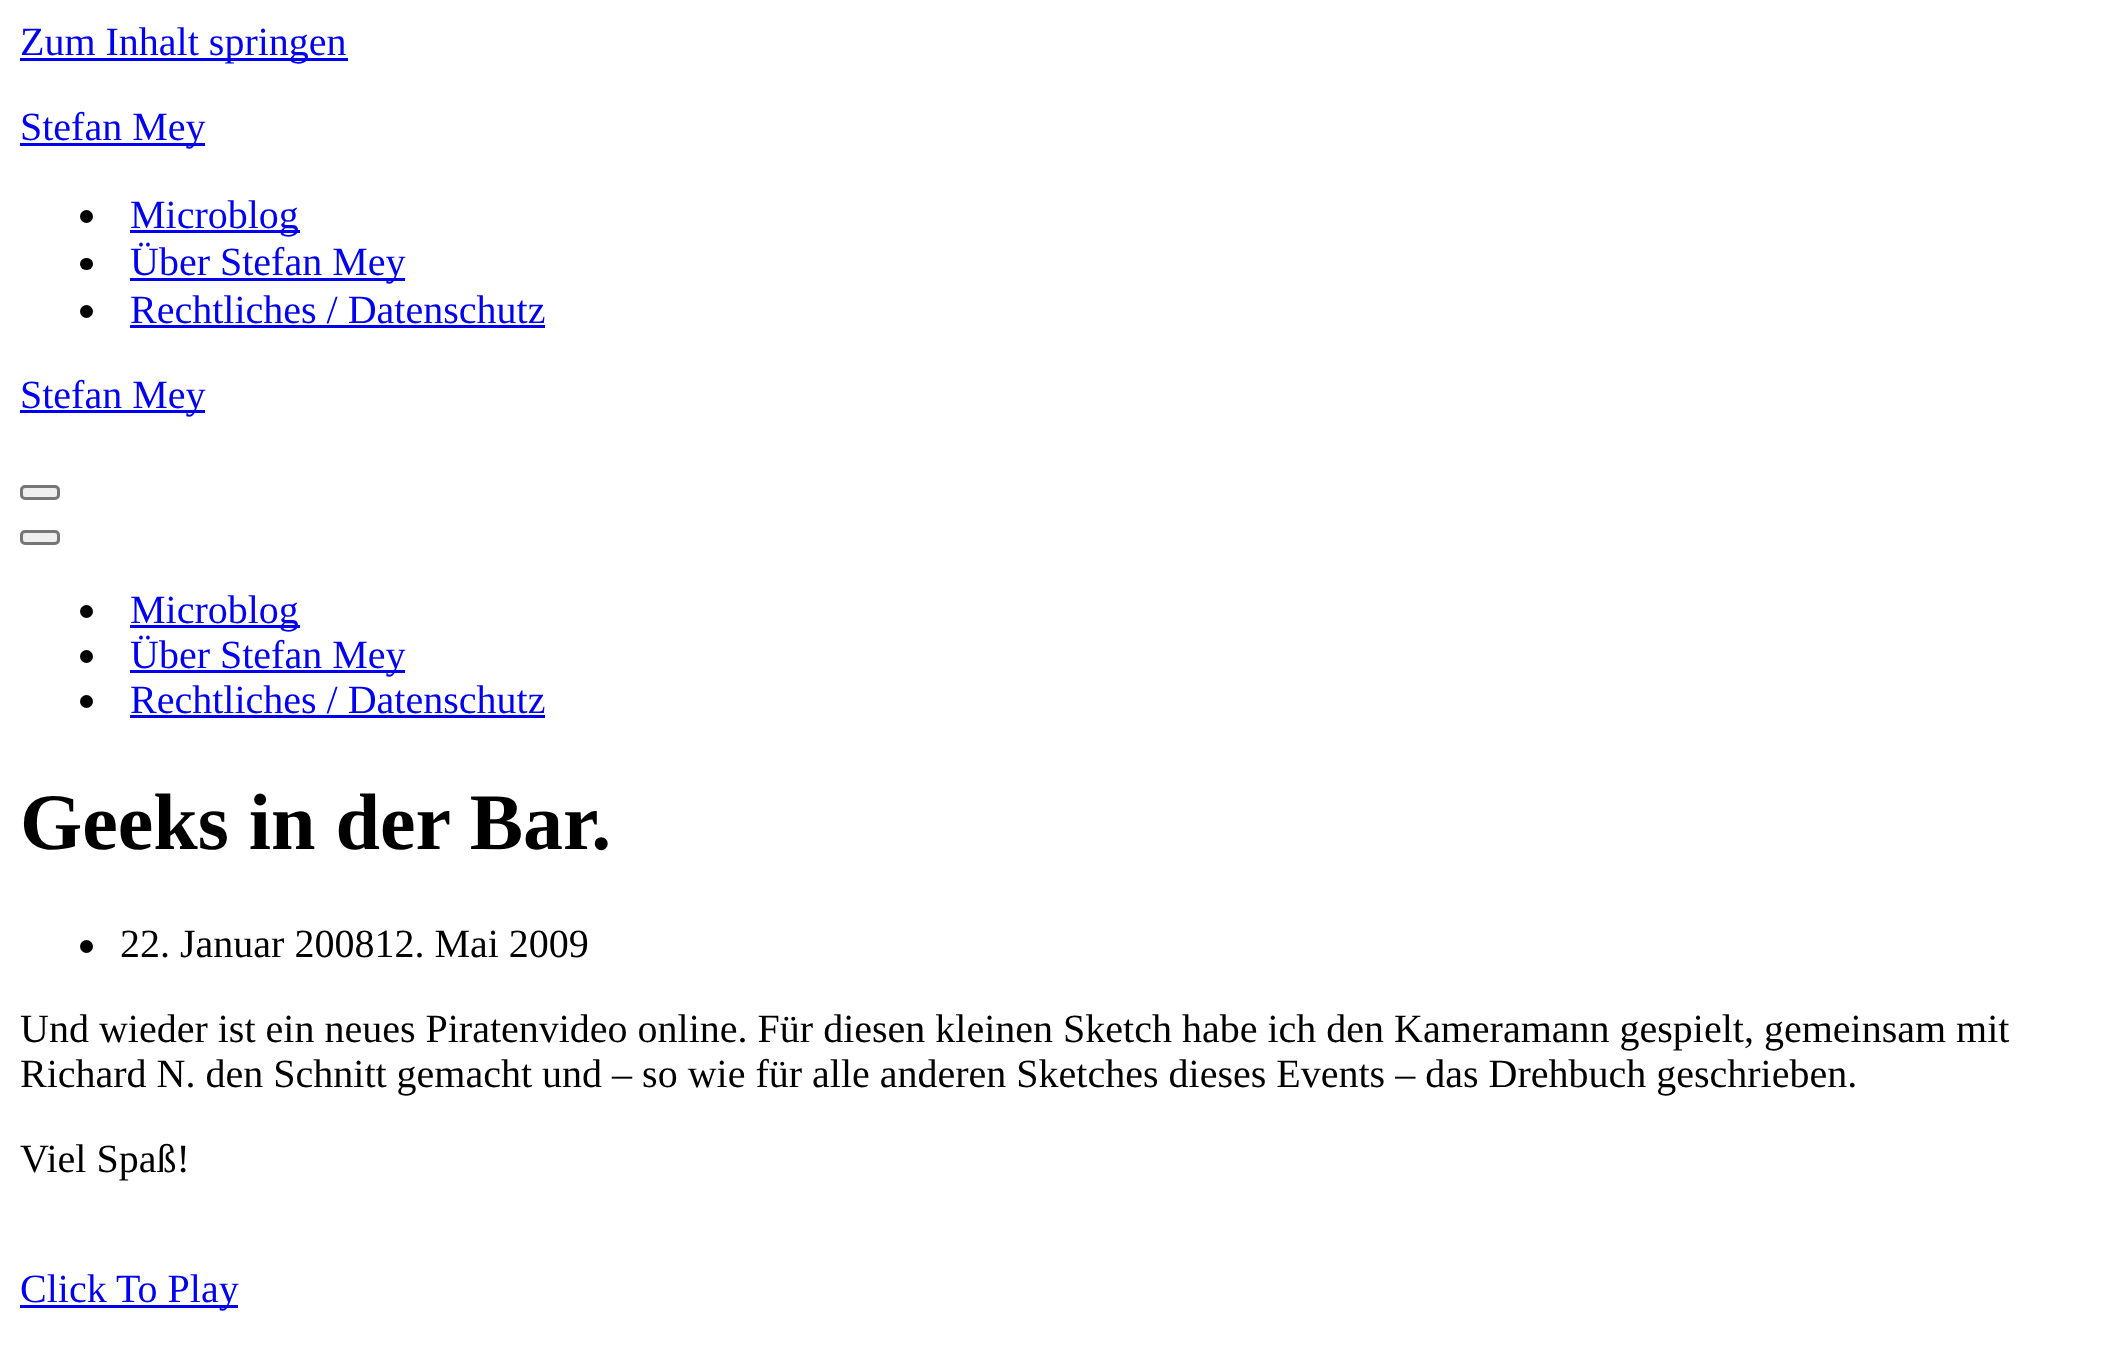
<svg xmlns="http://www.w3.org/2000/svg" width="2123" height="1354">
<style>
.a{font:40px Liberation Serif;fill:#00e}
.b{font:bold 80px Liberation Serif;fill:#000}
.c{font:40px Liberation Serif;fill:#000}
</style>
<rect width="100%" height="100%" fill="#fff"/>
<path fill="#00e" d="M20 58h328v3H20z"/>
<path fill="#00e" d="M20 143h185v3H20z"/>
<circle fill="#000" cx="86.5" cy="216.5" r="6.5"/>
<path fill="#00e" d="M130 230h170v3H130z"/>
<rect fill="#000" x="80" y="258" width="13" height="12" rx="6"/>
<path fill="#00e" d="M130 278h275v3H130z"/>
<circle fill="#000" cx="86.5" cy="311.5" r="6.5"/>
<path fill="#00e" d="M130 325h415v3H130z"/>
<path fill="#00e" d="M20 410h185v3H20z"/>
<rect fill="#efefef" stroke="#767676" stroke-width="3" x="21.5" y="486.5" width="37" height="12" rx="3.5"/>
<rect fill="#efefef" stroke="#767676" stroke-width="3" x="21.5" y="531.5" width="37" height="12" rx="3.5"/>
<circle fill="#000" cx="86.5" cy="611.5" r="6.5"/>
<path fill="#00e" d="M130 625h170v3H130z"/>
<circle fill="#000" cx="86.5" cy="656.5" r="6.5"/>
<path fill="#00e" d="M130 670h275v3H130z"/>
<circle fill="#000" cx="86.5" cy="701.5" r="6.5"/>
<path fill="#00e" d="M130 715h415v3H130z"/>
<circle fill="#000" cx="86.5" cy="946.5" r="6.5"/>
<path fill="#00e" d="M20 1305h218v3H20z"/>
<text class="a" x="20" y="55">Zum Inhalt springen</text>
<text class="a" x="20" y="140">Stefan Mey</text>
<text class="a" x="130" y="228">Microblog</text>
<text class="a" x="130" y="275">Über Stefan Mey</text>
<text class="a" x="130" y="323">Rechtliches / Datenschutz</text>
<text class="a" x="20" y="408">Stefan Mey</text>
<text class="a" x="130" y="623">Microblog</text>
<text class="a" x="130" y="668">Über Stefan Mey</text>
<text class="a" x="130" y="713">Rechtliches / Datenschutz</text>
<text class="b" x="20" y="849">Geeks in der Bar.</text>
<text class="c" x="120" y="957">22. Januar 200812. Mai 2009</text>
<text class="c" x="20" y="1042">Und wieder ist ein neues Piratenvideo online. Für diesen kleinen Sketch habe ich den Kameramann gespielt, gemeinsam mit</text>
<text class="c" x="20" y="1087">Richard N. den Schnitt gemacht und – so wie für alle anderen Sketches dieses Events – das Drehbuch geschrieben.</text>
<text class="c" x="20" y="1172">Viel Spaß!</text>
<text class="a" x="20" y="1302">Click To Play</text>
</svg>
